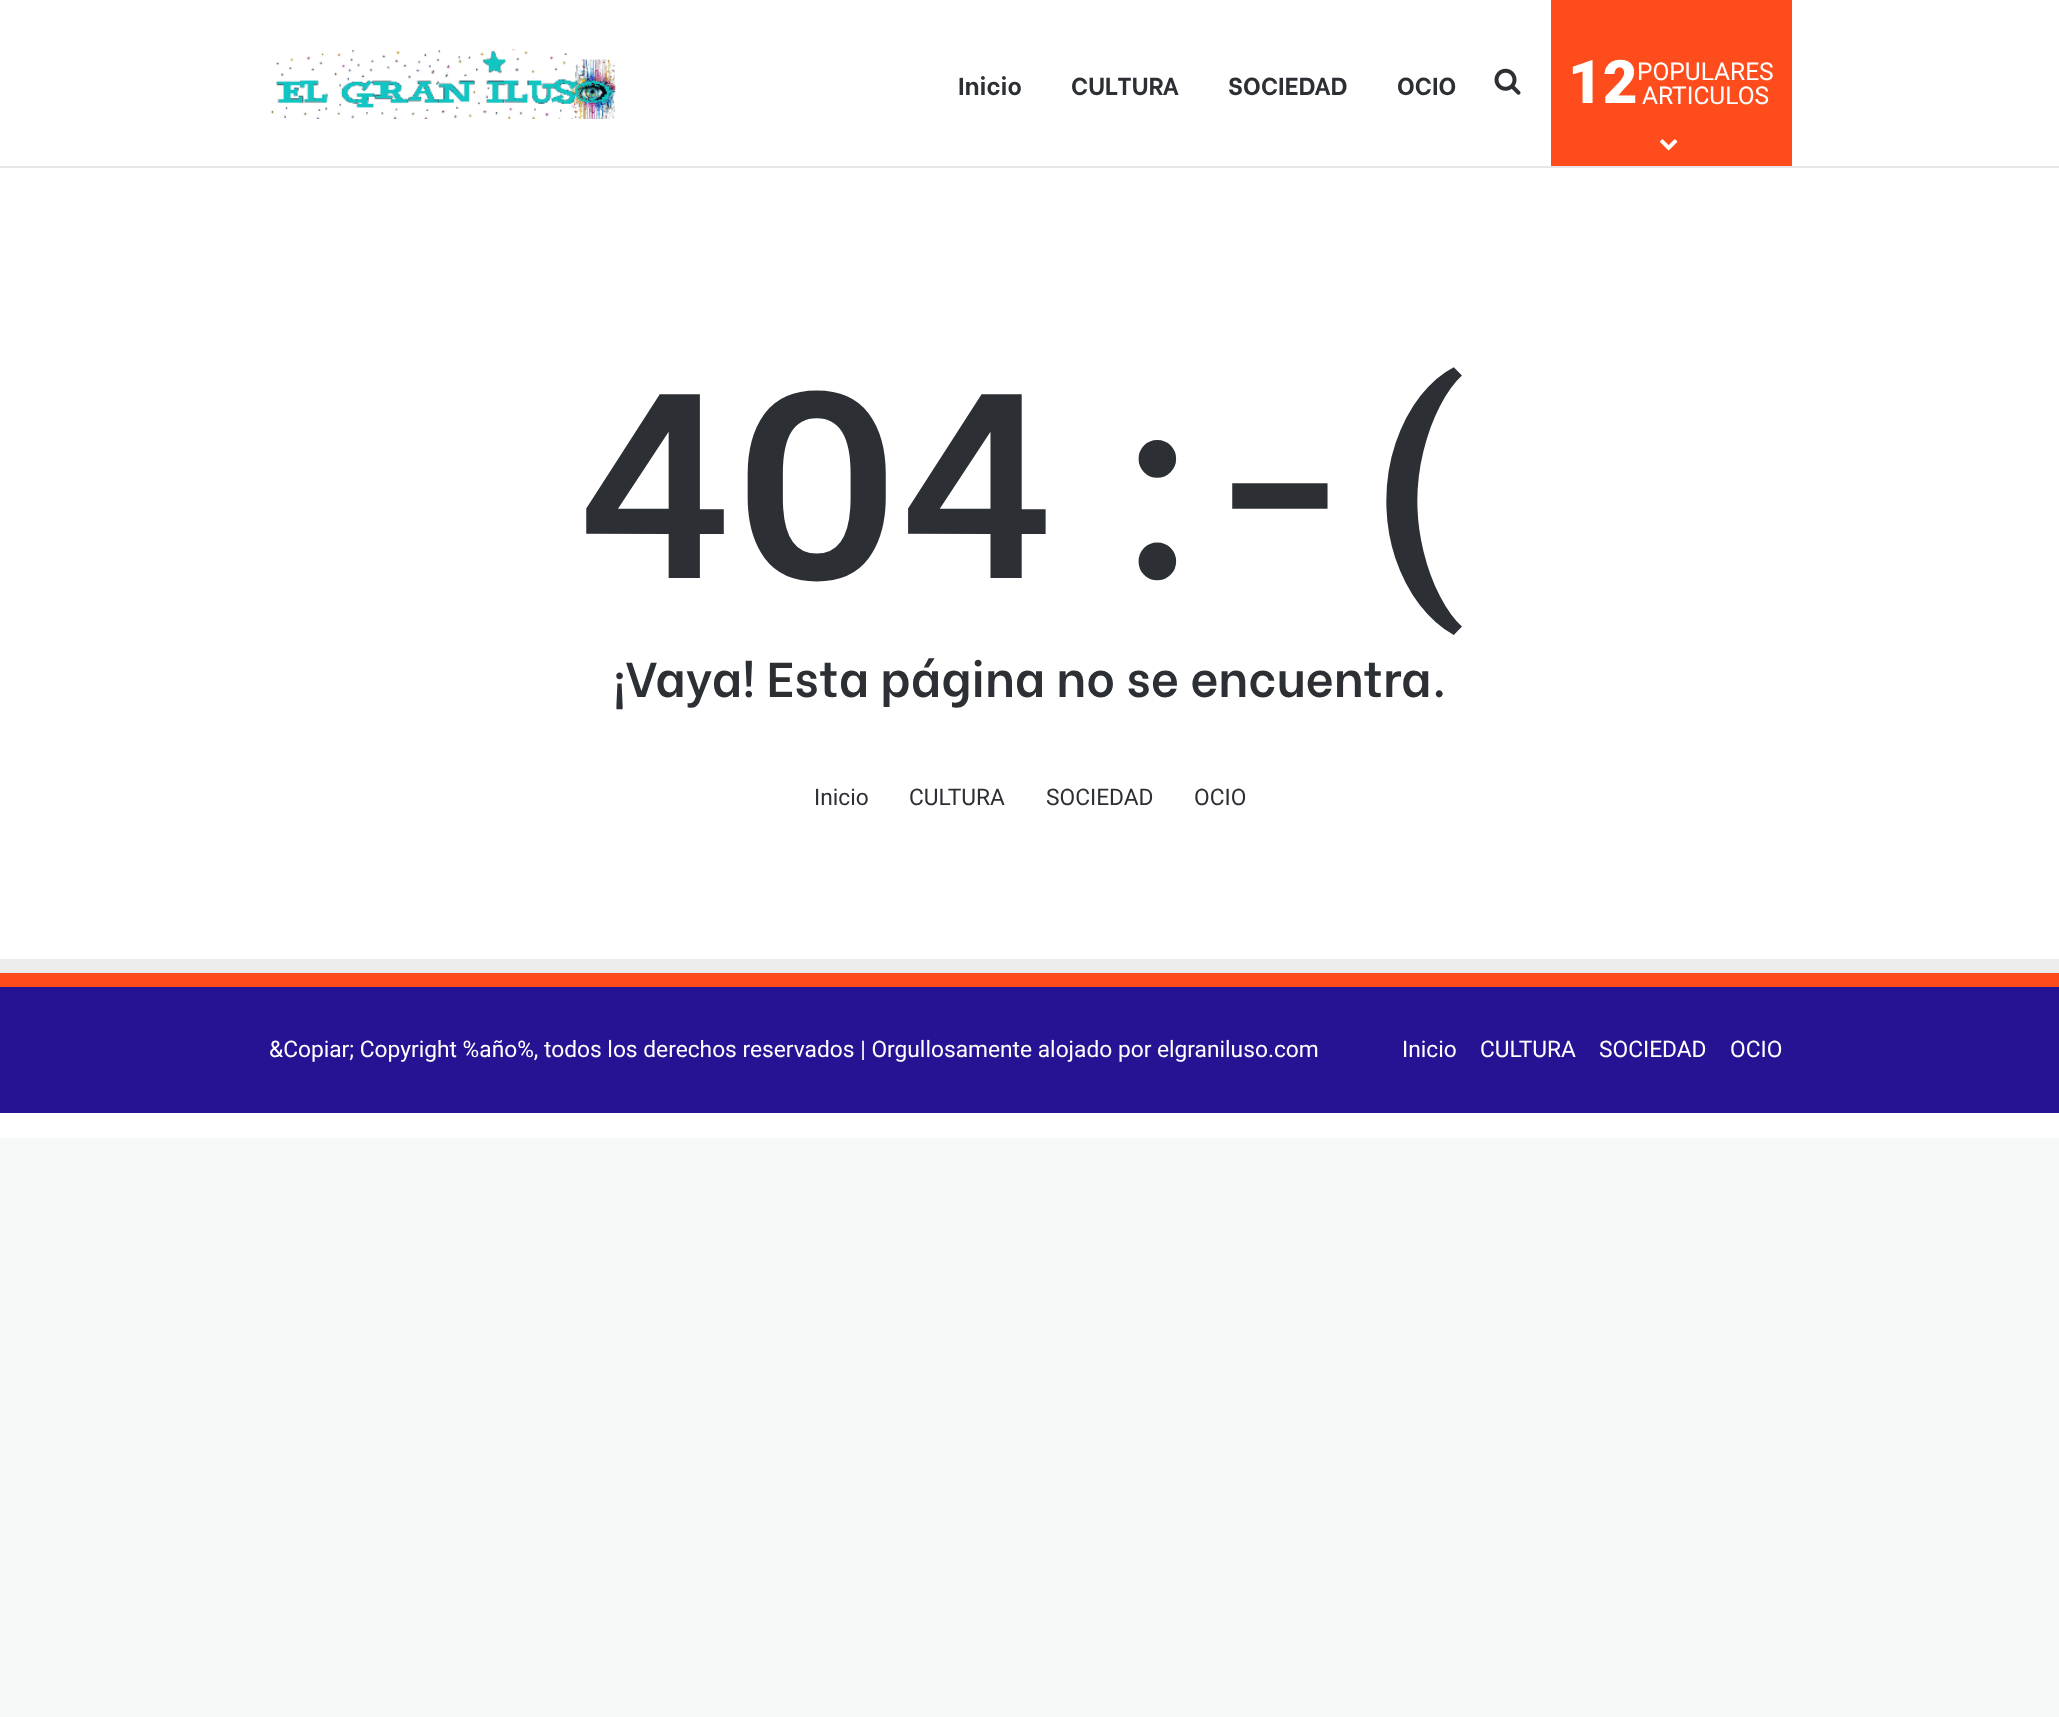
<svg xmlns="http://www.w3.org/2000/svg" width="2059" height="1717">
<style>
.a{font:bold 24.5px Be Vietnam;fill:#2c2f34}
.b{font:900 60px Roboto;fill:#fff}
.c{font:24.5px Roboto;fill:#fff}
.d{font:600 262.5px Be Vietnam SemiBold;fill:#2c2f34}
.e{font:600 49px Be Vietnam SemiBold;fill:#2c2f34}
.f{font:22.75px Roboto;fill:#2c2f34}
.g{font:22.75px Roboto;fill:#fff}
</style>
<rect width="100%" height="100%" fill="#f7f8f8"/>
<path fill="#fff" d="M0 0h2059v1138H0z"/>
<path fill="#e6e6e6" d="M0 166h2059v2H0z"/>
<image href="1.png" x="270" y="49" width="346" height="70"/>
<image href="2.png" x="1494" y="68" width="27" height="27"/>
<path fill="#fe4c1c" d="M1551 0h241v166H1551z"/>
<image href="3.png" x="1660" y="139" width="18" height="12"/>
<path fill="#ededed" d="M0 959h2059v14H0z"/>
<path fill="#fe4c1c" d="M0 973h2059v14H0z"/>
<path fill="#261393" d="M0 987h2059v126H0z"/>
<text class="a" x="958" y="95">Inicio</text>
<text class="a" x="1071" y="95">CULTURA</text>
<text class="a" x="1228" y="95">SOCIEDAD</text>
<text class="a" x="1397" y="95">OCIO</text>
<text class="b" x="1568" y="103">12</text>
<text class="c" x="1637" y="80">POPULARES</text>
<text class="c" x="1642" y="104">ARTICULOS</text>
<text class="d" x="576" y="578">404 :-(</text>
<text class="e" x="613" y="697">¡Vaya! Esta página no se encuentra.</text>
<text class="f" x="814" y="805">Inicio</text>
<text class="f" x="909" y="805">CULTURA</text>
<text class="f" x="1046" y="805">SOCIEDAD</text>
<text class="f" x="1194" y="805">OCIO</text>
<text class="g" x="269" y="1057">&amp;Copiar; Copyright %año%, todos los derechos reservados | Orgullosamente alojado por elgraniluso.com</text>
<text class="g" x="1402" y="1057">Inicio</text>
<text class="g" x="1480" y="1057">CULTURA</text>
<text class="g" x="1599" y="1057">SOCIEDAD</text>
<text class="g" x="1730" y="1057">OCIO</text>
</svg>
